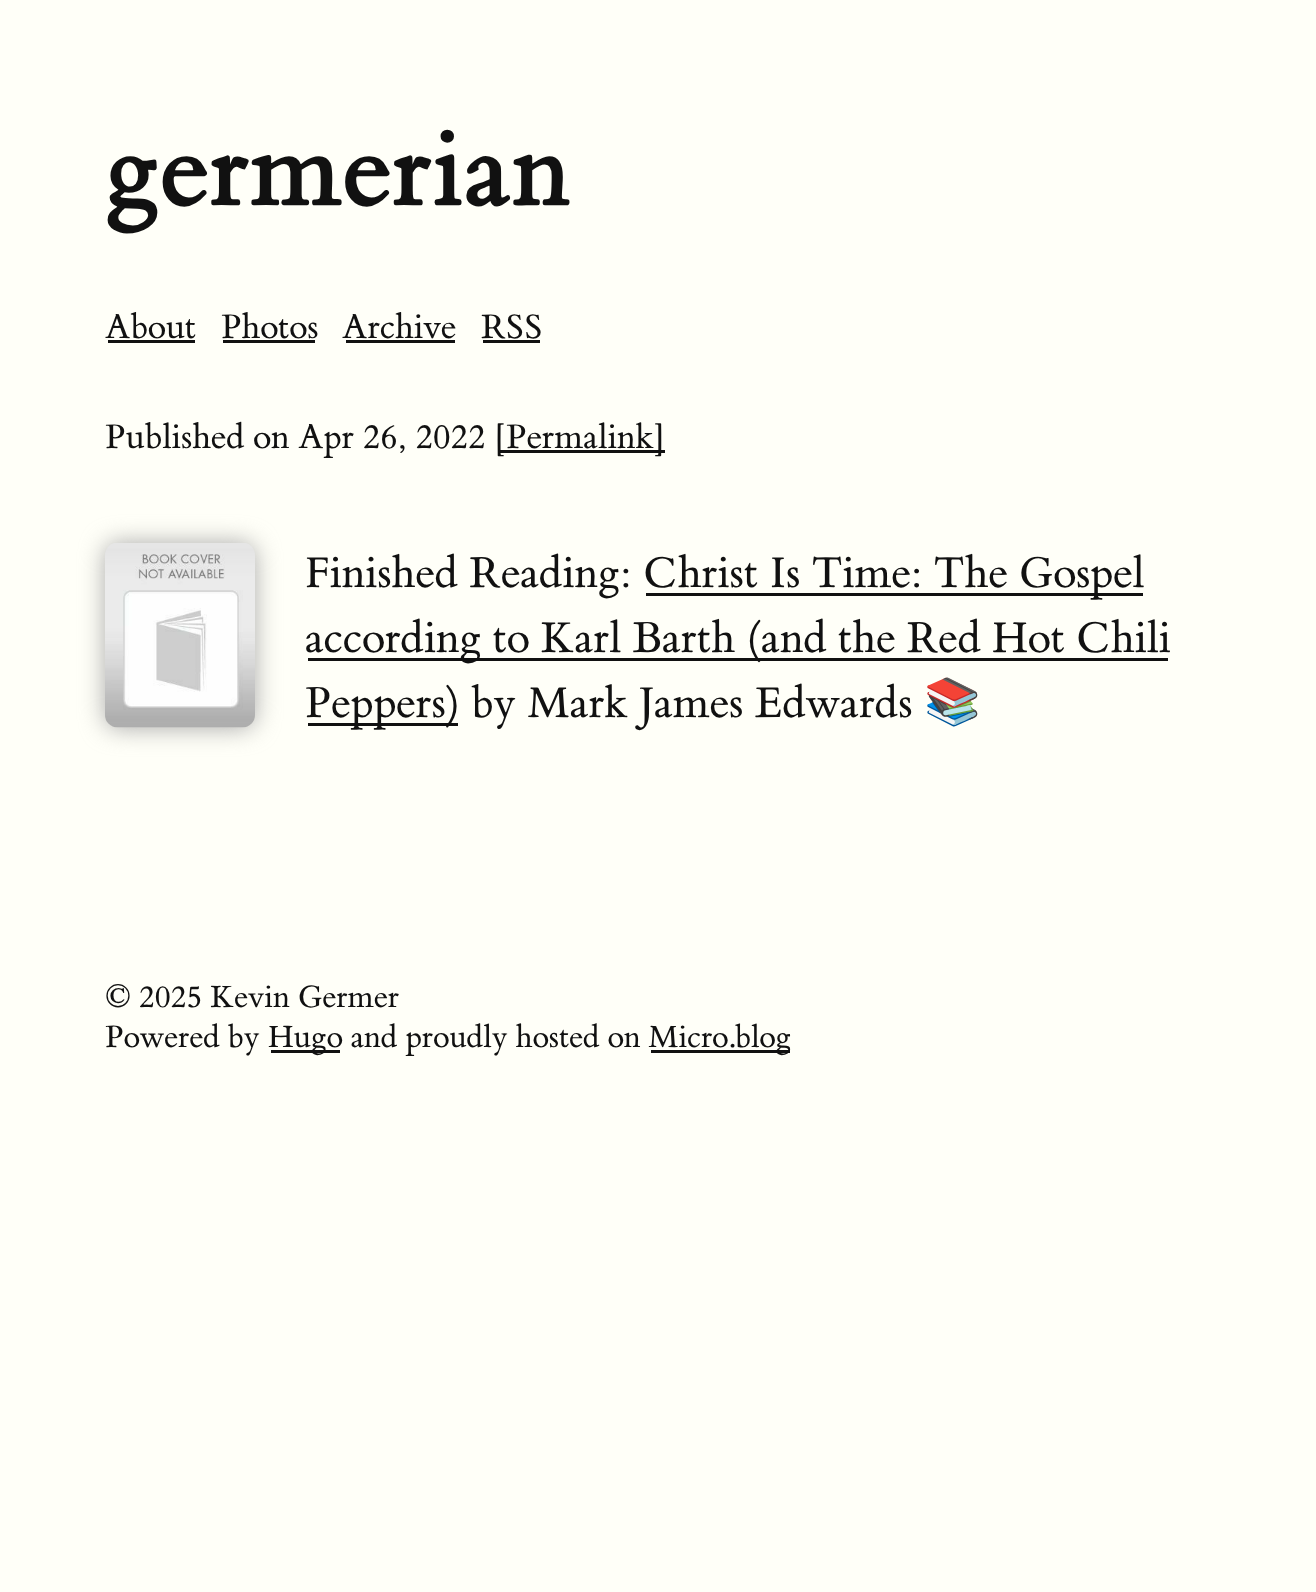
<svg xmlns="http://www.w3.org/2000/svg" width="1316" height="1592">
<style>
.a{font:bold 113.75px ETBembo;fill:#111}
.b{font:35.75px ETBembo;fill:#111}
.c{font:45.5px ETBembo;fill:#111}
.d{font:45.5px Noto Color Emoji;fill:#111}
.e{font:32.5px ETBembo;fill:#111}
</style>
<rect width="100%" height="100%" fill="#fffff8"/>
<path fill="#111" d="M105 340h93v3H105z"/>
<path fill="#fffff8" d="M195 340h3v3H195z"/>
<path fill="#fffff8" d="M105 340h3v3H105z"/>
<path fill="#111" d="M220 340h98v3H220z"/>
<path fill="#fffff8" d="M315 340h3v3H315z"/>
<path fill="#fffff8" d="M220 340h3v3H220z"/>
<path fill="#111" d="M343 340h115v3H343z"/>
<path fill="#fffff8" d="M455 340h3v3H455z"/>
<path fill="#fffff8" d="M343 340h3v3H343z"/>
<path fill="#111" d="M480 340h63v3H480z"/>
<path fill="#fffff8" d="M540 340h3v3H540z"/>
<path fill="#fffff8" d="M480 340h3v3H480z"/>
<path fill="#111" d="M495 450h173v3H495z"/>
<path fill="#fffff8" d="M665 450h3v3H665z"/>
<path fill="#fffff8" d="M495 450h3v3H495z"/>
<rect fill="#a9a9a9" filter="blur(12.5px)" x="105" y="543" width="150" height="185" rx="13"/>
<image href="1.png" x="105" y="543" width="150" height="185"/>
<path fill="#111" d="M643 593h502v3H643z"/>
<path fill="#fffff8" d="M1143 593h2v3H1143z"/>
<path fill="#fffff8" d="M643 593h3v3H643z"/>
<path fill="#111" d="M305 658h865v3H305z"/>
<path fill="#fffff8" d="M1168 658h2v3H1168z"/>
<path fill="#fffff8" d="M305 658h3v3H305z"/>
<path fill="#111" d="M305 723h155v3H305z"/>
<path fill="#fffff8" d="M458 723h2v3H458z"/>
<path fill="#fffff8" d="M305 723h3v3H305z"/>
<path fill="#111" d="M268 1050h75v3H268z"/>
<path fill="#fffff8" d="M340 1050h3v3H340z"/>
<path fill="#fffff8" d="M268 1050h3v3H268z"/>
<path fill="#111" d="M648 1050h145v3H648z"/>
<path fill="#fffff8" d="M790 1050h3v3H790z"/>
<path fill="#fffff8" d="M648 1050h3v3H648z"/>
<text class="a" x="105" y="205">germerian</text>
<text class="b" x="105" y="338">About</text>
<text class="b" x="221" y="338">Photos</text>
<text class="b" x="342" y="338">Archive</text>
<text class="b" x="481" y="338">RSS</text>
<text class="b" x="105" y="448">Published on Apr 26, 2022</text>
<text class="b" x="494" y="448">[Permalink]</text>
<text class="c" x="305" y="587">Finished Reading:</text>
<text class="c" x="643" y="587">Christ Is Time: The Gospel</text>
<text class="c" x="305" y="652">according to Karl Barth (and the Red Hot Chili</text>
<text class="c" x="305" y="717">Peppers) by Mark James Edwards</text>
<text class="d" x="924" y="717">📚</text>
<text class="e" x="105" y="1007">© 2025 Kevin Germer</text>
<text class="e" x="105" y="1047">Powered by</text>
<text class="e" x="268" y="1047">Hugo and proudly hosted on</text>
<text class="e" x="648" y="1047">Micro.blog</text>
</svg>
